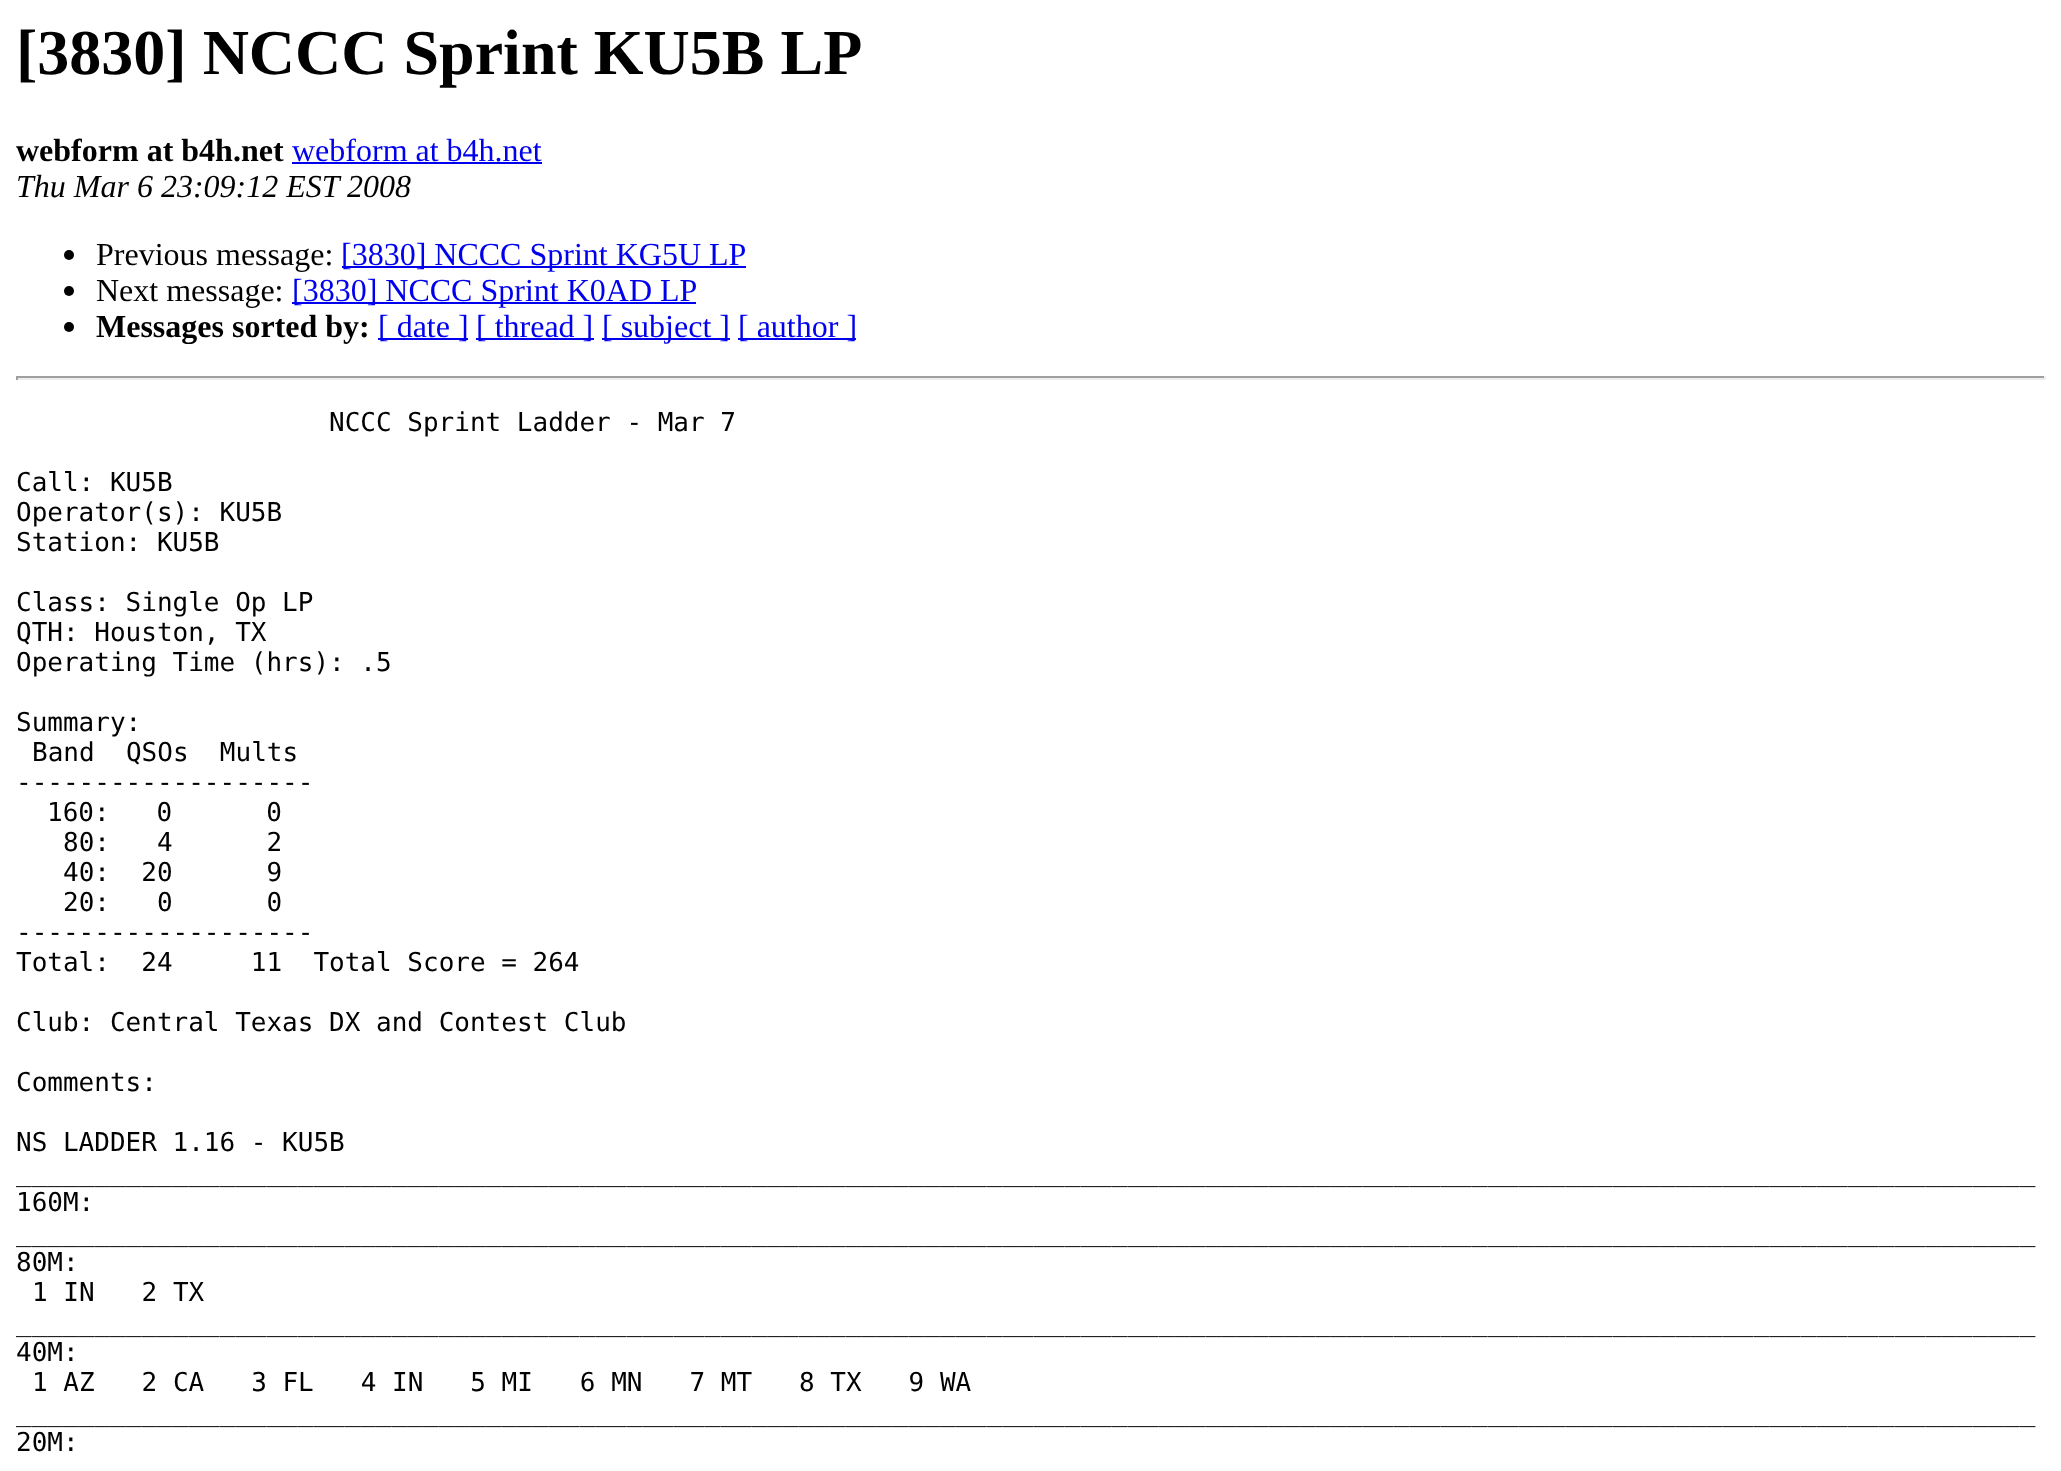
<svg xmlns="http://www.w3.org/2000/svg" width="2061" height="1471">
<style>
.a{font:bold 64px Liberation Serif;fill:#000}
.b{font:bold 32px Liberation Serif;fill:#000}
.c{font:32px Liberation Serif;fill:#00e}
.d{font:italic 32px Liberation Serif;fill:#000}
.e{font:32px Liberation Serif;fill:#000}
.f{font:26px DejaVu Sans Mono;fill:#000}
</style>
<rect width="100%" height="100%" fill="#fff"/>
<path fill="#00e" d="M292 162h250v2H292z"/>
<circle fill="#000" cx="69" cy="255" r="5"/>
<path fill="#00e" d="M342 266h404v2H342z"/>
<circle fill="#000" cx="69" cy="291" r="5"/>
<path fill="#00e" d="M292 302h404v2H292z"/>
<circle fill="#000" cx="69" cy="327" r="5"/>
<path fill="#00e" d="M378 338h90v2H378z"/>
<path fill="#00e" d="M476 338h118v2H476z"/>
<path fill="#00e" d="M602 338h128v2H602z"/>
<path fill="#00e" d="M738 338h118v2H738z"/>
<path fill="#9f9f9f" d="M16 376h2030v2H16z"/>
<path fill="#eee" d="M2044 376h2v4H2044z"/>
<path fill="#eee" d="M16 378h2030v2H16z"/>
<path fill="#9f9f9f" d="M16 376h2v4H16z"/>
<text class="a" x="16" y="74">[3830] NCCC Sprint KU5B LP</text>
<text class="b" x="16" y="161">webform at b4h.net</text>
<text class="c" x="292" y="161">webform at b4h.net</text>
<text class="d" x="16" y="197">Thu Mar 6 23:09:12 EST 2008</text>
<text class="e" x="96" y="265">Previous message:</text>
<text class="c" x="341" y="265">[3830] NCCC Sprint KG5U LP</text>
<text class="e" x="96" y="301">Next message:</text>
<text class="c" x="292" y="301">[3830] NCCC Sprint K0AD LP</text>
<text class="b" x="96" y="337">Messages sorted by:</text>
<text class="c" x="378" y="337">[ date ]</text>
<text class="c" x="476" y="337">[ thread ]</text>
<text class="c" x="602" y="337">[ subject ]</text>
<text class="c" x="738" y="337">[ author ]</text>
<text class="f" x="329" y="431">NCCC Sprint Ladder - Mar 7</text>
<text class="f" x="16" y="491">Call: KU5B</text>
<text class="f" x="16" y="521">Operator(s): KU5B</text>
<text class="f" x="16" y="551">Station: KU5B</text>
<text class="f" x="16" y="611">Class: Single Op LP</text>
<text class="f" x="16" y="641">QTH: Houston, TX</text>
<text class="f" x="16" y="671">Operating Time (hrs): .5</text>
<text class="f" x="16" y="731">Summary:</text>
<text class="f" xml:space="preserve" x="32" y="761">Band  QSOs  Mults</text>
<text class="f" x="16" y="791">-------------------</text>
<text class="f" xml:space="preserve" x="47" y="821">160:   0      0</text>
<text class="f" xml:space="preserve" x="63" y="851">80:   4      2</text>
<text class="f" xml:space="preserve" x="63" y="881">40:  20      9</text>
<text class="f" xml:space="preserve" x="63" y="911">20:   0      0</text>
<text class="f" x="16" y="941">-------------------</text>
<text class="f" xml:space="preserve" x="16" y="971">Total:  24     11  Total Score = 264</text>
<text class="f" x="16" y="1031">Club: Central Texas DX and Contest Club</text>
<text class="f" x="16" y="1091">Comments:</text>
<text class="f" x="16" y="1151">NS LADDER 1.16 - KU5B</text>
<text class="f" x="16" y="1181">_________________________________________________________________________________________________________________________________</text>
<text class="f" x="16" y="1211">160M:</text>
<text class="f" x="16" y="1241">_________________________________________________________________________________________________________________________________</text>
<text class="f" x="16" y="1271">80M:</text>
<text class="f" xml:space="preserve" x="32" y="1301">1 IN   2 TX</text>
<text class="f" x="16" y="1331">_________________________________________________________________________________________________________________________________</text>
<text class="f" x="16" y="1361">40M:</text>
<text class="f" xml:space="preserve" x="32" y="1391">1 AZ   2 CA   3 FL   4 IN   5 MI   6 MN   7 MT   8 TX   9 WA</text>
<text class="f" x="16" y="1421">_________________________________________________________________________________________________________________________________</text>
<text class="f" x="16" y="1451">20M:</text>
</svg>
